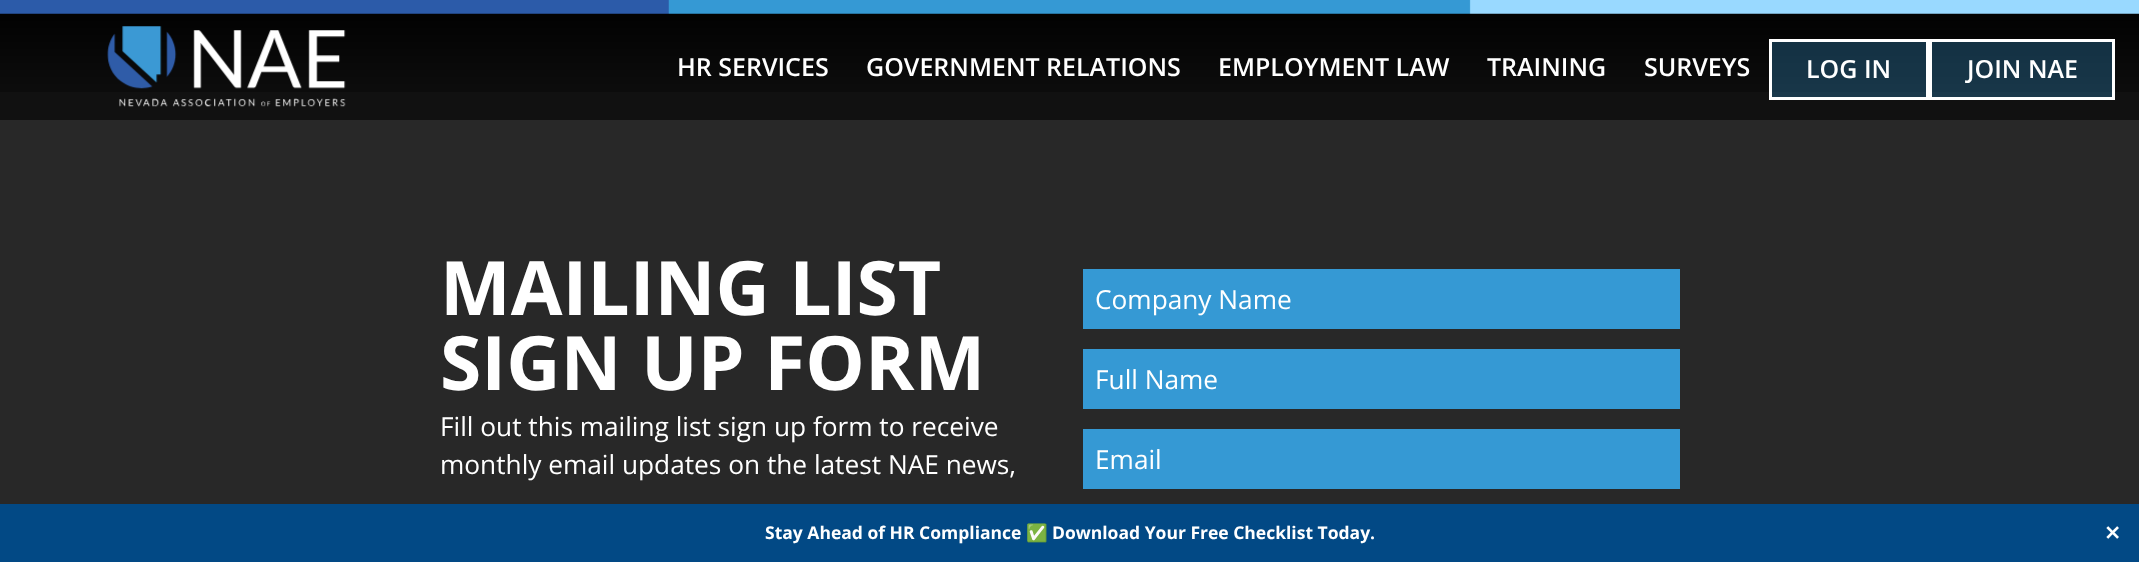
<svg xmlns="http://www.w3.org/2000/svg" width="2139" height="562">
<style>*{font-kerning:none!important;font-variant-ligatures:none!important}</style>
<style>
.a{font:600 25px Open Sans;fill:#fff}
.b{font:bold 75px Open Sans;fill:#fff}
.c{font:26.25px Open Sans;fill:#fff}
.d{font:bold 17.5px Open Sans;fill:#fff}
.e{font:bold 17.5px Noto Color Emoji;fill:#fff}
.f{font:bold 20px DejaVu Sans;fill:#fff}
</style>
<rect width="100%" height="100%" fill="#282828"/>
<path fill="#111" d="M0 13h2139v107H0z"/>
<image href="1.png" x="0" y="0" width="2139" height="92"/>
<image href="2.png" x="107" y="26" width="239" height="81"/>
<path fill="#3599d44d" stroke="#fff" stroke-width="3" d="M1770.5 40.5h157v58H1770.5z"/>
<path fill="#3599d44d" stroke="#fff" stroke-width="3" d="M1930.5 40.5h183v58H1930.5z"/>
<path fill="#3599d4" d="M1083 269h597v60H1083z"/>
<path fill="#3599d4" d="M1083 349h597v60H1083z"/>
<path fill="#3599d4" d="M1083 429h597v60H1083z"/>
<path fill="#024985" d="M0 504h2139v58H0z"/>
<text class="a" x="677" y="76">HR SERVICES</text>
<text class="a" x="866" y="76">GOVERNMENT RELATIONS</text>
<text class="a" x="1218" y="76">EMPLOYMENT LAW</text>
<text class="a" x="1487" y="76">TRAINING</text>
<text class="a" x="1644" y="76">SURVEYS</text>
<text class="a" x="1806" y="78">LOG IN</text>
<text class="a" x="1967" y="78">JOIN NAE</text>
<text class="b" x="440" y="315">MAILING LIST</text>
<text class="b" x="440" y="390">SIGN UP FORM</text>
<text class="c" x="440" y="436">Fill out this mailing list sign up form to receive</text>
<text class="c" x="440" y="474">monthly email updates on the latest NAE news,</text>
<text class="c" x="1095" y="309">Company Name</text>
<text class="c" x="1095" y="389">Full Name</text>
<text class="c" x="1095" y="469">Email</text>
<text class="d" x="765" y="539">Stay Ahead of HR Compliance</text>
<text class="e" x="1026" y="539">✅</text>
<text class="d" x="1052" y="539">Download Your Free Checklist Today.</text>
<text class="f" x="2104" y="540">✕</text>
</svg>
